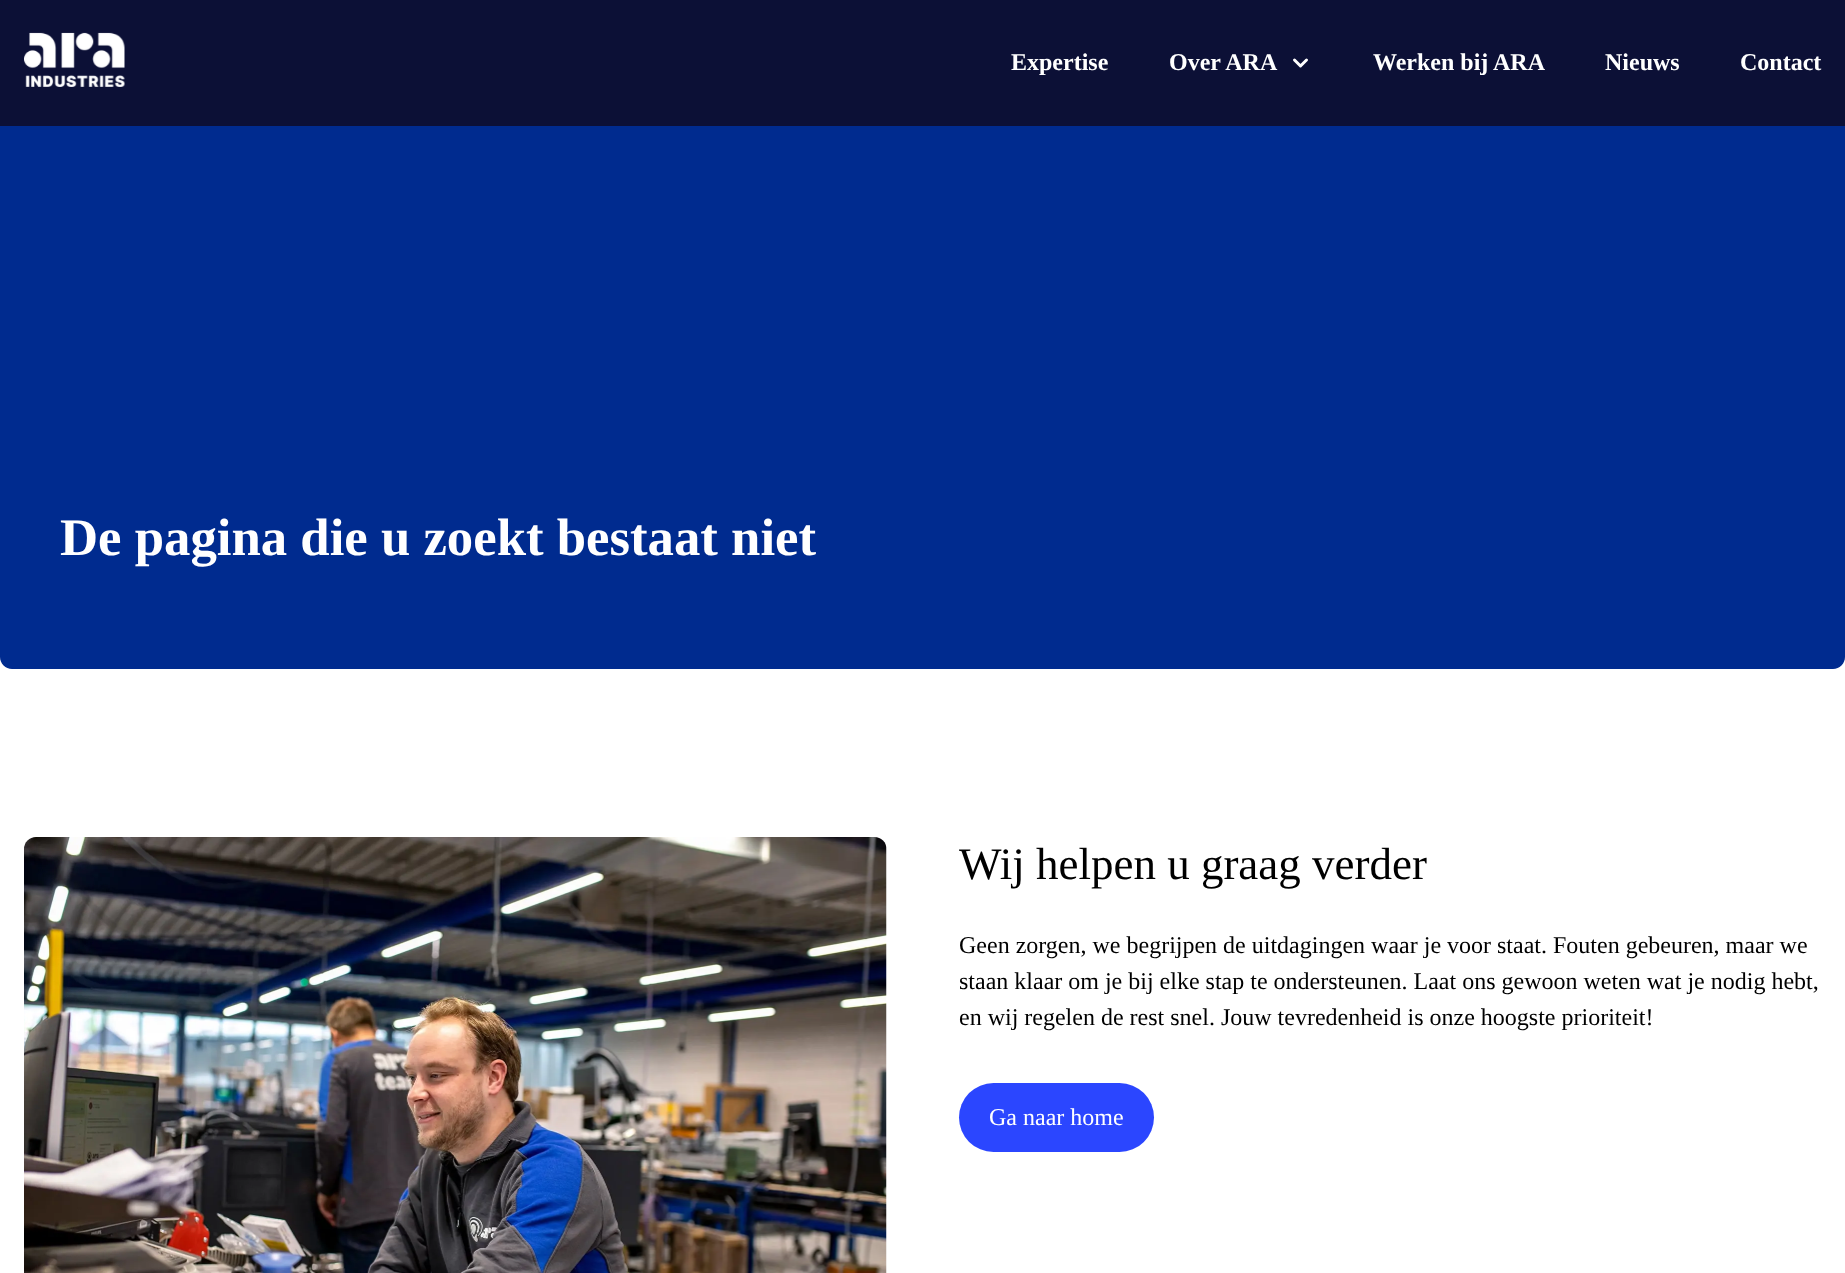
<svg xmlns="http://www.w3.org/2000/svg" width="1845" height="1273">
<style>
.a{font:bold 24px Liberation Serif;fill:#fff}
.b{font:bold 52.75px Liberation Serif;fill:#fff}
.c{font:45px Liberation Serif;fill:#000}
.d{font:24px Liberation Serif;fill:#000}
.e{font:24px Liberation Serif;fill:#fff}
</style>
<rect width="100%" height="100%" fill="#fff"/>
<path fill="#002b8f" d="M0 120h1845v537c0 6.5-5.5 12-12 12h-1821c-6.5 0-12-5.5-12-12z"/>
<path fill="#0c1036" d="M0 0h1845v126H0z"/>
<image href="1.png" x="24" y="32" width="101" height="55"/>
<path fill="none" stroke="#fff" stroke-width="3" stroke-linecap="round" stroke-linejoin="round" d="M1294.5 60l6 6l6-6"/>
<image href="2.png" x="24" y="837" width="863" height="436"/>
<rect fill="#2b46ff" x="959" y="1083" width="195" height="69" rx="34.5"/>
<text class="a" x="1011" y="70">Expertise</text>
<text class="a" x="1169" y="70">Over ARA</text>
<text class="a" x="1373" y="70">Werken bij ARA</text>
<text class="a" x="1605" y="70">Nieuws</text>
<text class="a" x="1740" y="70">Contact</text>
<text class="b" x="60" y="555">De pagina die u zoekt bestaat niet</text>
<text class="c" x="959" y="879">Wij helpen u graag verder</text>
<text class="d" x="959" y="953">Geen zorgen, we begrijpen de uitdagingen waar je voor staat. Fouten gebeuren, maar we</text>
<text class="d" x="959" y="989">staan klaar om je bij elke stap te ondersteunen. Laat ons gewoon weten wat je nodig hebt,</text>
<text class="d" x="959" y="1025">en wij regelen de rest snel. Jouw tevredenheid is onze hoogste prioriteit!</text>
<text class="e" x="989" y="1125">Ga naar home</text>
</svg>
